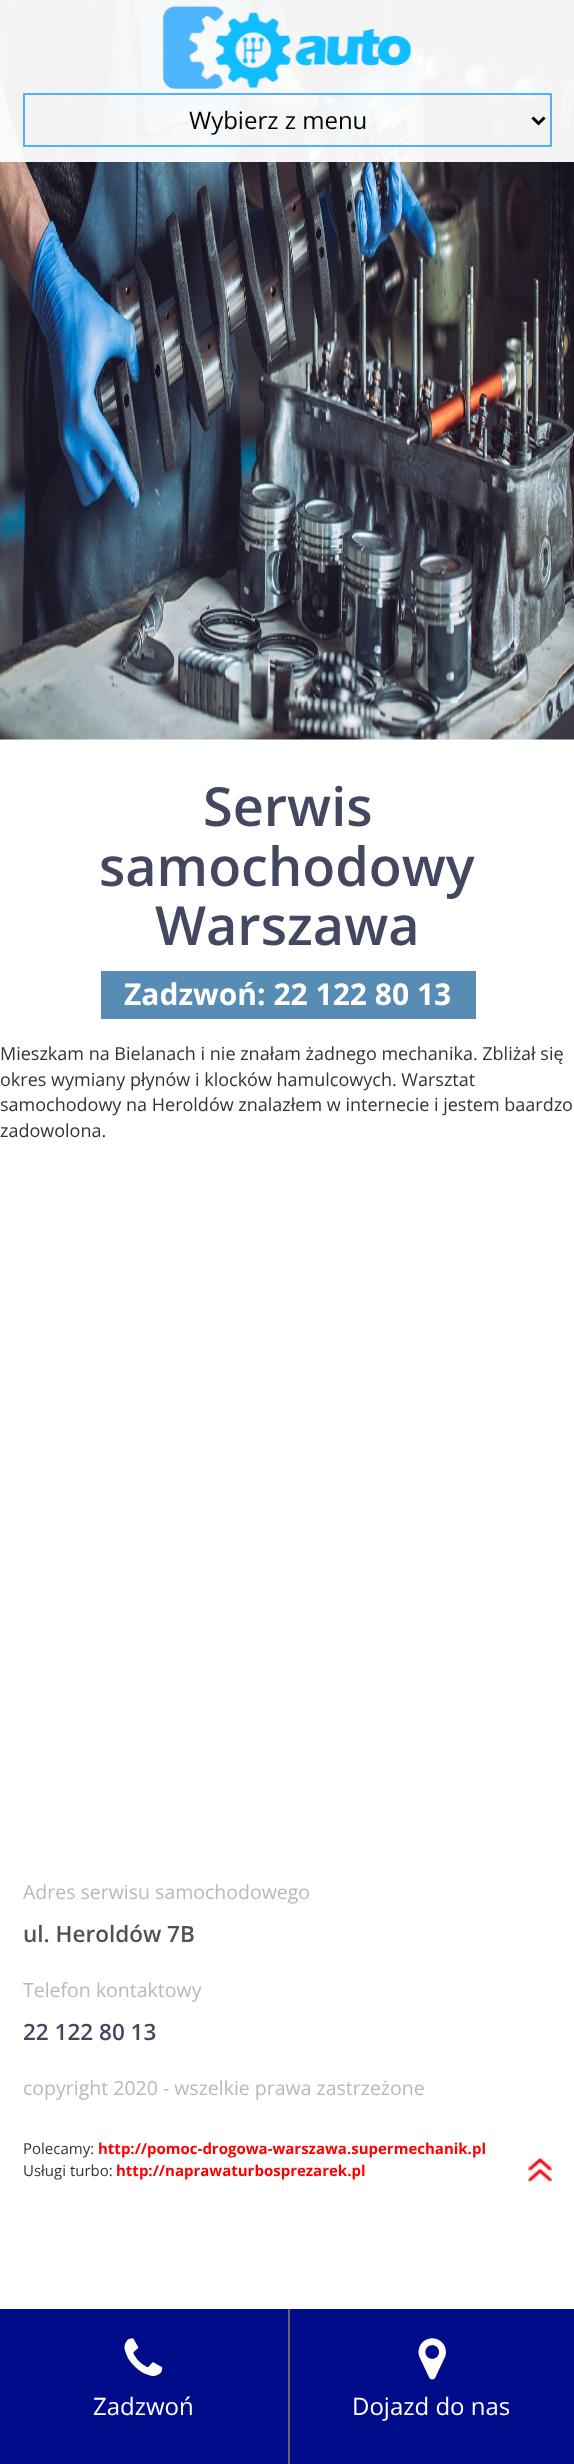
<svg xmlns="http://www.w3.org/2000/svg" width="574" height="2464">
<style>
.a{font:24px Open Sans;fill:#000}
.b{font:600 54px Open Sans;fill:#434760}
.c{font:bold 30px Open Sans;fill:#fff}
.d{font:18px Open Sans;fill:#333}
.e{font:19.5px Open Sans;fill:#b9b9b9}
.f{font:600 22.5px Open Sans;fill:#515255}
.g{font:600 22.5px Open Sans;fill:#434760}
.h{font:15px Open Sans;fill:#333}
.i{font:bold 15px Open Sans;fill:#f00}
.j{font:24px Open Sans;fill:#fff}
</style>
<rect width="100%" height="100%" fill="#fff"/>
<image href="2.png" x="0" y="0" width="574" height="740"/>
<path fill="#fffffff2" d="M0 0h574v162H0z"/>
<image href="1.png" x="162" y="6" width="250" height="83"/>
<path fill="none" stroke="#4db3fb" stroke-width="2" d="M24 94h527v52H24z"/>
<path fill="none" stroke="#000" stroke-width="3" d="M532.5 117.5l6 6l6-6"/>
<path fill="#578cb5" d="M101 971h375v48H101z"/>
<image href="3.png" x="528" y="2158" width="24" height="24"/>
<path fill="#000c8a" d="M0 2309h574v155H0z"/>
<image href="4.png" x="124" y="2338" width="39" height="38"/>
<path fill="#666" d="M288 2309h2v155H288z"/>
<image href="5.png" x="418" y="2338" width="28" height="42"/>
<text class="a" x="189" y="129">Wybierz z menu</text>
<text class="b" x="203" y="826">Serwis</text>
<text class="b" x="99" y="886">samochodowy</text>
<text class="b" x="155" y="945">Warszawa</text>
<text class="c" x="124" y="1005">Zadzwoń: 22 122 80 13</text>
<text class="d" x="0" y="1060">Mieszkam na Bielanach i nie znałam żadnego mechanika. Zbliżał się</text>
<text class="d" x="0" y="1086">okres wymiany płynów i klocków hamulcowych. Warsztat</text>
<text class="d" x="0" y="1111">samochodowy na Heroldów znalazłem w internecie i jestem baardzo</text>
<text class="d" x="0" y="1137">zadowolona.</text>
<text class="e" x="23" y="1899">Adres serwisu samochodowego</text>
<text class="f" x="23" y="1942">ul. Heroldów 7B</text>
<text class="e" x="23" y="1997">Telefon kontaktowy</text>
<text class="g" x="23" y="2040">22 122 80 13</text>
<text class="e" x="23" y="2095">copyright 2020 - wszelkie prawa zastrzeżone</text>
<text class="h" x="23" y="2154">Polecamy:</text>
<text class="i" x="98" y="2154">http://pomoc-drogowa-warszawa.supermechanik.pl</text>
<text class="h" x="23" y="2176">Usługi turbo:</text>
<text class="i" x="116" y="2176">http://naprawaturbosprezarek.pl</text>
<text class="j" x="93" y="2415">Zadzwoń</text>
<text class="j" x="352" y="2415">Dojazd do nas</text>
</svg>
